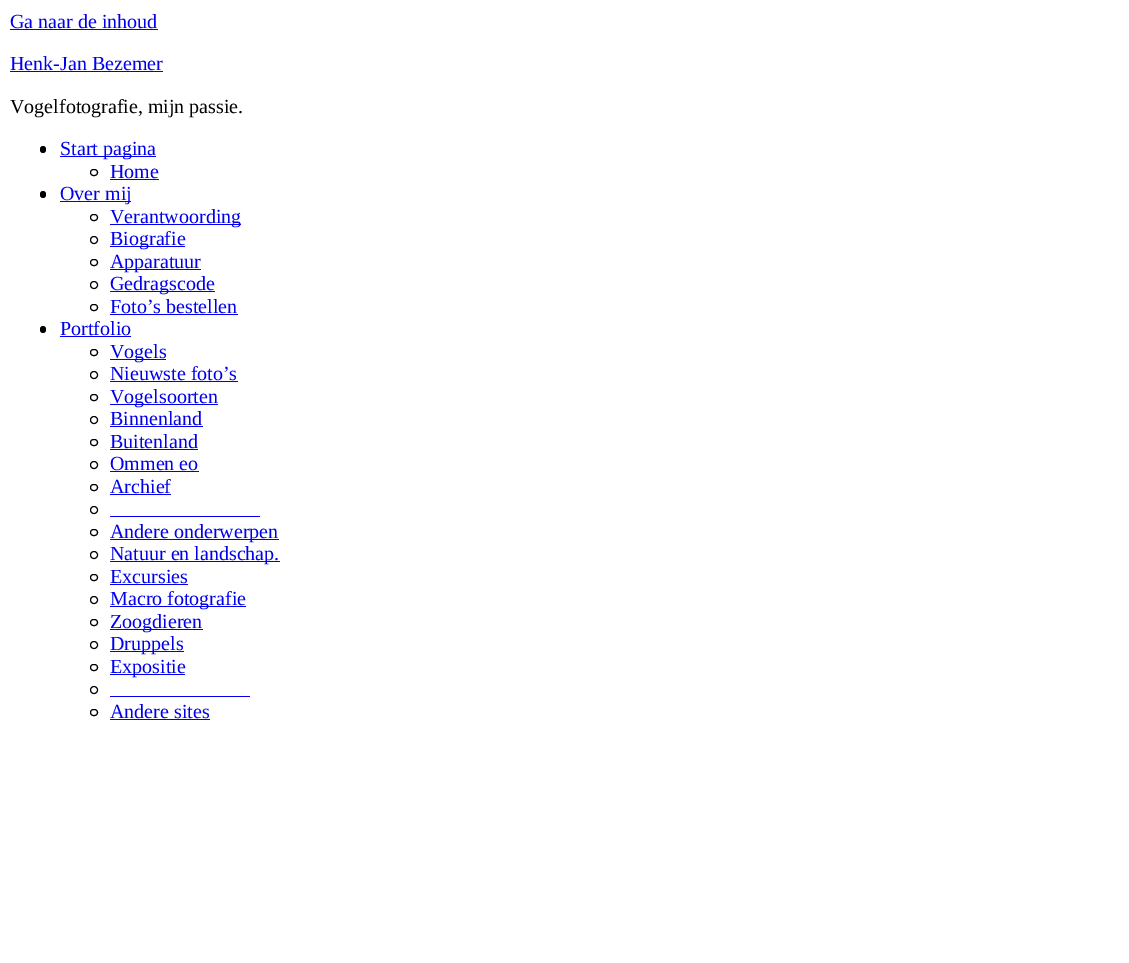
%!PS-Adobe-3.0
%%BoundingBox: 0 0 1129 963
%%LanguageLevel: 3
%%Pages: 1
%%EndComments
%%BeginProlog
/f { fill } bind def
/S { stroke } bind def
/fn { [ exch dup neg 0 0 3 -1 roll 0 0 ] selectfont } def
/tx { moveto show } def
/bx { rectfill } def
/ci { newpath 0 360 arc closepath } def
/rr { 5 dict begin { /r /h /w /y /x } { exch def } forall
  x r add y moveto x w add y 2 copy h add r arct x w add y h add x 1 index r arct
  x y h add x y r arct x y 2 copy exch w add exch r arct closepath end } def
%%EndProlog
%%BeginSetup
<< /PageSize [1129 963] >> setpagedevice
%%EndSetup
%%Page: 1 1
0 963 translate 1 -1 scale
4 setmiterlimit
1 setgray
0 0 1129 963 bx
/LiberationSerif-Regular 20 fn
0 0 0.933 setrgbcolor
(Ga naar de inhoud) 10 28 tx
10 29 148 1 bx
(Henk-Jan Bezemer) 10 70 tx
10 71 153 1 bx
0 setgray
(Vogelfotografie, mijn passie.) 10 113 tx
40 146 6 7 3 rr f
0 0 0.933 setrgbcolor
60 156 96 1 bx
(Start pagina) 60 155 tx
0 setgray
90.5 169.5 7 6 3 rr S
0 0 0.933 setrgbcolor
(Home) 110 178 tx
110 179 49 1 bx
0 setgray
40 191 6 7 3 rr f
0 0 0.933 setrgbcolor
60 201 71 1 bx
(Over mij) 60 200 tx
0 setgray
90.5 214.5 7 6 3 rr S
0 0 0.933 setrgbcolor
110 224 131 1 bx
(Verantwoording) 110 223 tx
0 setgray
94 240 3.5 ci S
0 0 0.933 setrgbcolor
110 246 75 1 bx
(Biografie) 110 245 tx
0 setgray
90.5 259.5 7 6 3 rr S
0 0 0.933 setrgbcolor
110 269 91 1 bx
(Apparatuur) 110 268 tx
0 setgray
94 285 3.5 ci S
0 0 0.933 setrgbcolor
110 291 105 1 bx
(Gedragscode) 110 290 tx
0 setgray
90.5 304.5 7 6 3 rr S
0 0 0.933 setrgbcolor
(Foto’s bestellen) 110 313 tx
110 314 128 1 bx
0 setgray
40 326 6 7 3 rr f
0 0 0.933 setrgbcolor
(Portfolio) 60 335 tx
60 336 71 1 bx
0 setgray
90.5 349.5 7 6 3 rr S
0 0 0.933 setrgbcolor
110 359 56 1 bx
(Vogels) 110 358 tx
0 setgray
94 375 3.5 ci S
0 0 0.933 setrgbcolor
(Nieuwste foto’s) 110 380 tx
110 381 128 1 bx
0 setgray
90.5 394.5 7 6 3 rr S
0 0 0.933 setrgbcolor
110 404 108 1 bx
(Vogelsoorten) 110 403 tx
0 setgray
94 420 3.5 ci S
0 0 0.933 setrgbcolor
(Binnenland) 110 425 tx
110 426 93 1 bx
0 setgray
90.5 439.5 7 6 3 rr S
0 0 0.933 setrgbcolor
(Buitenland) 110 448 tx
110 449 88 1 bx
0 setgray
94 465 3.5 ci S
0 0 0.933 setrgbcolor
(Ommen eo) 110 470 tx
110 471 89 1 bx
0 setgray
90.5 484.5 7 6 3 rr S
0 0 0.933 setrgbcolor
(Archief) 110 493 tx
110 494 61 1 bx
0 setgray
94 510 3.5 ci S
0 0 0.933 setrgbcolor
110 516 150 1 bx
0 setgray
90.5 529.5 7 6 3 rr S
0 0 0.933 setrgbcolor
110 539 169 1 bx
(Andere onderwerpen) 110 538 tx
0 setgray
94 555 3.5 ci S
0 0 0.933 setrgbcolor
110 561 170 1 bx
(Natuur en landschap.) 110 560 tx
0 setgray
90.5 574.5 7 6 3 rr S
0 0 0.933 setrgbcolor
(Excursies) 110 583 tx
110 584 78 1 bx
0 setgray
94 600 3.5 ci S
0 0 0.933 setrgbcolor
110 606 136 1 bx
(Macro fotografie) 110 605 tx
0 setgray
90.5 619.5 7 6 3 rr S
0 0 0.933 setrgbcolor
110 629 93 1 bx
(Zoogdieren) 110 628 tx
0 setgray
94 645 3.5 ci S
0 0 0.933 setrgbcolor
110 651 74 1 bx
(Druppels) 110 650 tx
0 setgray
90.5 664.5 7 6 3 rr S
0 0 0.933 setrgbcolor
110 674 75 1 bx
(Expositie) 110 673 tx
0 setgray
94 690 3.5 ci S
0 0 0.933 setrgbcolor
110 696 140 1 bx
0 setgray
90.5 709.5 7 6 3 rr S
0 0 0.933 setrgbcolor
(Andere sites) 110 718 tx
110 719 100 1 bx
showpage
%%EOF
